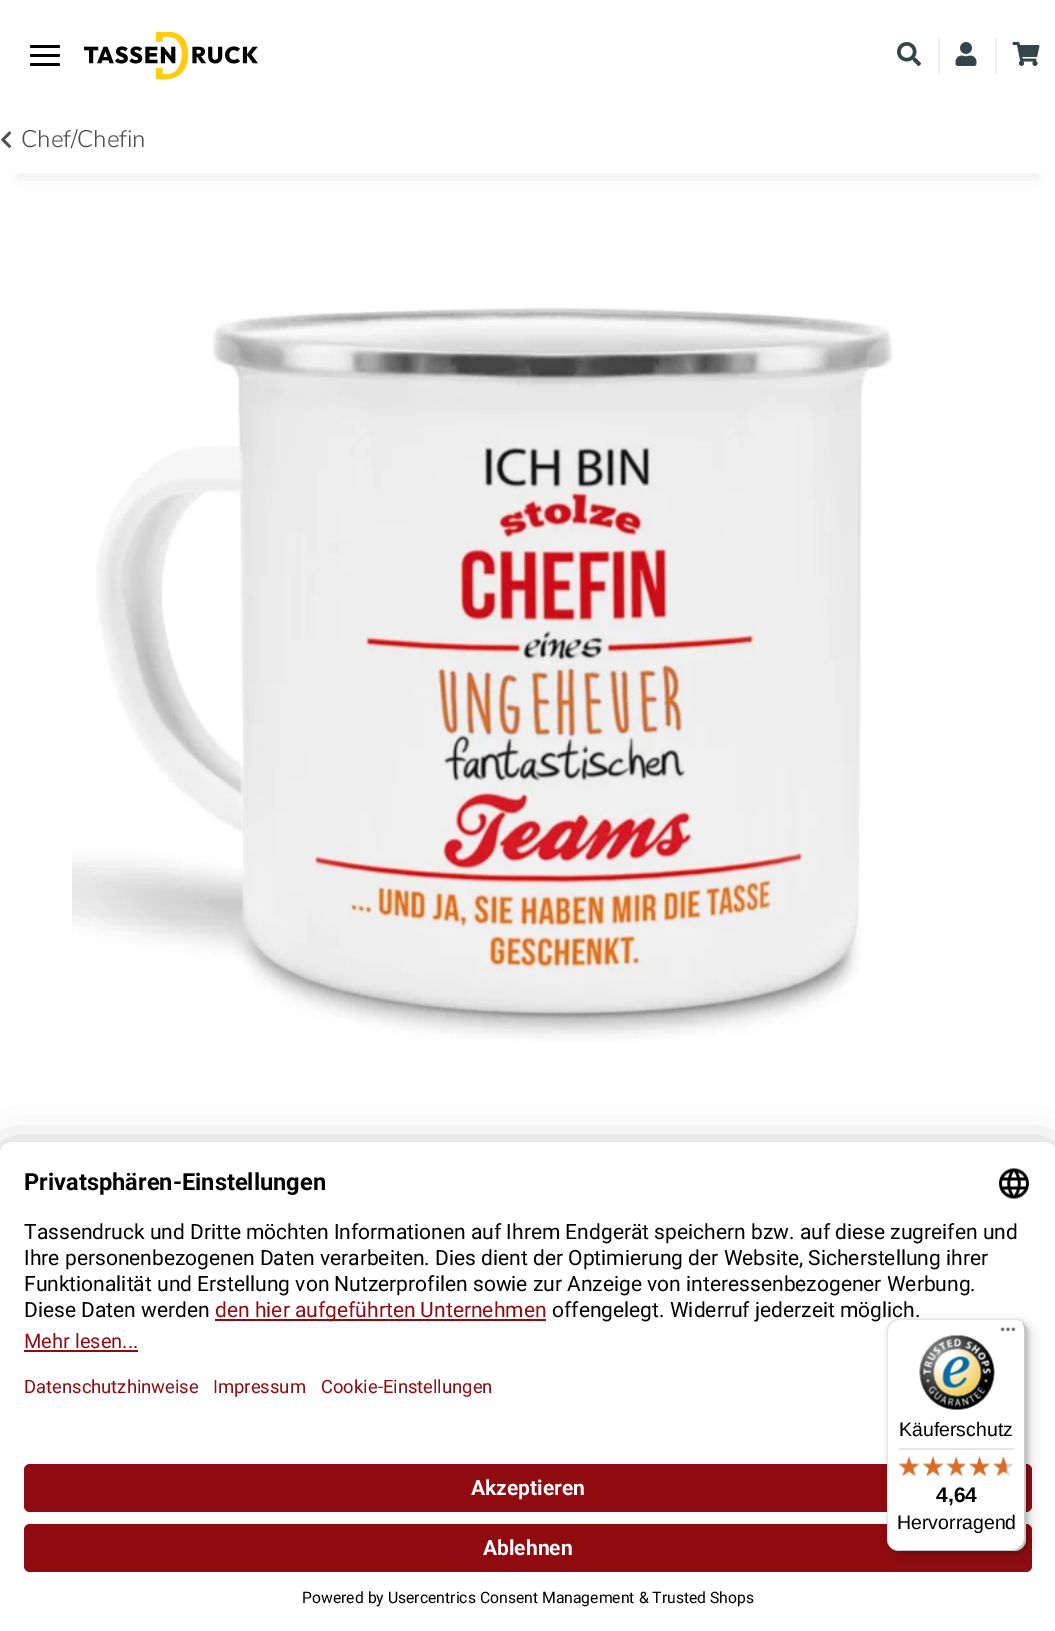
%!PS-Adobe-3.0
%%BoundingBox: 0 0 1055 1631
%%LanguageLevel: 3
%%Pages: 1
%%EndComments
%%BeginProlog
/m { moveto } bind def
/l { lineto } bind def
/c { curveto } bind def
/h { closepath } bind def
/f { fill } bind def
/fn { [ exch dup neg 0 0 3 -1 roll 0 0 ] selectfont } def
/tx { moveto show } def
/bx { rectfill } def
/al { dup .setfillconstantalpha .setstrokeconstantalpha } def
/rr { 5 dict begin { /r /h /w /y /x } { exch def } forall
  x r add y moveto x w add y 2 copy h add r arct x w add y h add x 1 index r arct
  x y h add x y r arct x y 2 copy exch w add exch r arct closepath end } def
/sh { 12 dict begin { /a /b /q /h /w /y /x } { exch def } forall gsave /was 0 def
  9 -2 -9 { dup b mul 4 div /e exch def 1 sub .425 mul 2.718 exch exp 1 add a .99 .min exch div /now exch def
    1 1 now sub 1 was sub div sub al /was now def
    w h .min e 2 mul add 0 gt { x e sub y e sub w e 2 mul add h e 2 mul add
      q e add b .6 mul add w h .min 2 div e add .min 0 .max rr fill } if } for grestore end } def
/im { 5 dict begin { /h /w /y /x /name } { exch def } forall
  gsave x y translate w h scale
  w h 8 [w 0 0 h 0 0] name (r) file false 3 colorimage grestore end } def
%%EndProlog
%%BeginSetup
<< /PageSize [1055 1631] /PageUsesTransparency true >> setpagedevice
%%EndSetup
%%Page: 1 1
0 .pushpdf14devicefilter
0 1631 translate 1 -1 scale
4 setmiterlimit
1 setgray
0 0 1055 1631 bx
0 setgray
18 42 1020 137 0 7 0.06 sh
1 setgray
11 35 1034 138 bx
0 setgray
30 54 30 3 1.5 rr f
30 45 30 3 1.5 rr f
30 63 30 3 1.5 rr f
(image0.raw) 84 32 174 48 im
0.933 setgray
938 38 2 36 bx
(image1.raw) 897 42 24 24 im
995 38 2 36 bx
(image2.raw) 955 42 22 24 im
(image3.raw) 1012 42 28 24 im
(image4.raw) 1 131 11 17 im
/NunitoSans-Light 24 fn
0.314 setgray
(Chef/Chefin) 21 147 tx
(image5.raw) 72 307 822 734 im
0 setgray
0 1172 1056 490 12 21 0.3 sh
0 1149 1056 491 12 19.5 0.22 sh
1 setgray
12 1142 m 1044 1142 l 1050.5 1142 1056 1147.5 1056 1154 c 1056 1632 l 0 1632 l 0 1154 l 0 1147.5 5.5 1142 12 1142 c h f
12 1142 m 1044 1142 l 1050.5 1142 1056 1147.5 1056 1154 c 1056 1446 l 0 1446 l 0 1154 l 0 1147.5 5.5 1142 12 1142 c h f
/Roboto-Bold 23.6 fn
0 setgray
(Privatsphären-Einstellungen) 24 1190 tx
(image6.raw) 999 1168 30 31 im
/Roboto-Regular 21 fn
(Tassendruck und Dritte möchten Informationen auf Ihrem Endgerät speichern bzw. auf diese zugreifen und) 24 1239 tx
(Ihre personenbezogenen Daten verarbeiten. Dies dient der Optimierung der Website, Sicherstellung ihrer) 24 1265 tx
(Funktionalität und Erstellung von Nutzerprofilen sowie zur Anzeige von interessenbezogener Werbung.) 24 1291 tx
(Diese Daten werden) 24 1317 tx
0.565 0.043 0.063 setrgbcolor
215 1319 331 2 bx
(den hier aufgeführten Unternehmen) 215 1317 tx
0 setgray
(offengelegt. Widerruf jederzeit möglich.) 552 1317 tx
/Roboto-Regular 20 fn
0.565 0.043 0.063 setrgbcolor
(Mehr lesen...) 24 1348 tx
24 1350 114 2 bx
/Roboto-Regular 18.4 fn
(Datenschutzhinweise) 24 1393 tx
(Impressum) 213 1393 tx
(Cookie-Einstellungen) 321 1393 tx
24 1464 1008 48 6 rr f
/Roboto-Bold 21 fn
1 setgray
(Akzeptieren) 471 1495 tx
0.565 0.043 0.063 setrgbcolor
24 1524 1008 48 6 rr f
1 setgray
(Ablehnen) 483 1555 tx
/Roboto-Regular 15.75 fn
0 setgray
(Powered by Usercentrics Consent Management & Trusted Shops) 302 1603 tx
891 1323 140 233 12 6 0.15 sh
888 1320 140 233 12 1.5 0.15 sh
1 setgray
887 1319 139 232 12 rr f
0.1 al
0 setgray
900 1320 m 1016 1320 l 1021 1321 l 1019 1320 1016 1319 1014 1319 c 899 1319 l 892 1319 887 1324 887 1331 c 887 1539 l 887 1542 888 1545 890 1547 c 889 1545 888 1543 888 1540 c 888 1332 l 888 1325 893 1320 900 1320 c h f
0.2 al
893 1549 m 894 1550 897 1551 899 1551 c 1014 1551 l 1021 1551 1026 1546 1026 1539 c 1026 1331 l 1026 1327 1024 1324 1022 1322 c 1023 1324 1024 1326 1024 1329 c 1024 1538 l 1024 1544 1019 1550 1012 1550 c 897 1550 l h f
0.196 setgray
891 1548 m 893 1550 896 1551 899 1551 c 1014 1551 l 1021 1551 1026 1546 1026 1539 c 1026 1331 l 1026 1328 1025 1325 1023 1323 c 1024 1325 1025 1327 1025 1330 c 1025 1538 l 1025 1545 1020 1550 1013 1550 c 898 1550 l 895 1550 893 1549 891 1548 c h f
0.3 al
1 setgray
891 1548 m 893 1550 896 1551 899 1551 c 1014 1551 l 1021 1551 1026 1546 1026 1539 c 1026 1331 l 1026 1328 1025 1325 1023 1323 c 1024 1325 1025 1327 1025 1330 c 1025 1538 l 1025 1545 1020 1550 1013 1550 c 898 1550 l 895 1550 893 1549 891 1548 c h f
1 al
(image7.raw) 1000 1327 16 5 im
(image8.raw) 919 1335 76 75 im
/LiberationSans-Regular 19.5 fn
0 setgray
(Käuferschutz) 899 1436 tx
0.898 setgray
899 1448 115 2 bx
(image14.raw) 899 1457 20 19 im
(image9.raw) 898 1456 22 20 im
(image15.raw) 923 1456 20 20 im
(image10.raw) 923 1456 20 20 im
(image16.raw) 946 1456 20 20 im
(image11.raw) 946 1456 20 20 im
(image17.raw) 969 1456 21 20 im
(image12.raw) 969 1456 21 20 im
(image18.raw) 993 1457 21 19 im
(image13.raw) 993 1456 14 20 im
/LiberationSans-Bold 21 fn
0 setgray
(4,64) 936 1502 tx
/LiberationSans-Regular 19.5 fn
(Hervorragend) 897 1529 tx
.poppdf14devicefilter showpage
%%EOF
